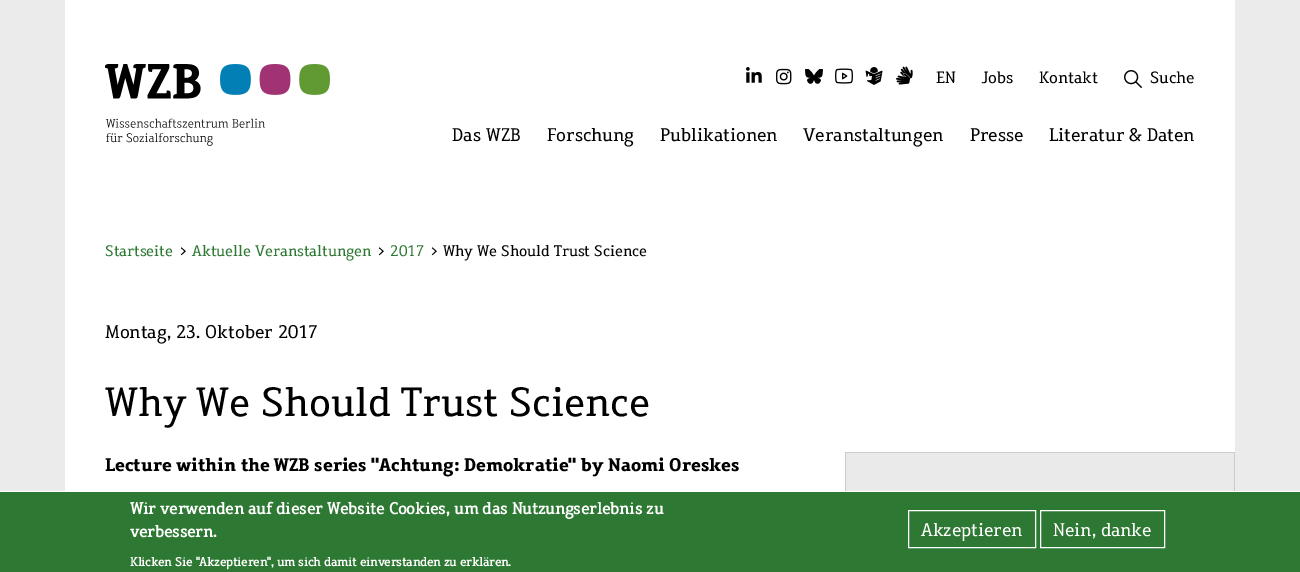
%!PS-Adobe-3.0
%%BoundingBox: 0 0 1300 572
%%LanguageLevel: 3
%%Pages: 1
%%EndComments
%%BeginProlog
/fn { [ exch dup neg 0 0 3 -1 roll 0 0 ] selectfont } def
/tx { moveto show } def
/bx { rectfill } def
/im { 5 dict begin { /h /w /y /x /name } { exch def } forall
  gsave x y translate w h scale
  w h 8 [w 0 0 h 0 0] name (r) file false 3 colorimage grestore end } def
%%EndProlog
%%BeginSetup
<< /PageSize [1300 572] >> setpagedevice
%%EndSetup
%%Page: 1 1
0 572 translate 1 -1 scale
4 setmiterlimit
0.922 setgray
0 0 1300 572 bx
1 setgray
65 0 1170 491 bx
(image0.raw) 105 64 160 82 im
(image1.raw) 220 64 110 31 im
(image2.raw) 746 67 16 16 im
(image3.raw) 776 68 16 17 im
(image4.raw) 805 69 18 15 im
(image5.raw) 835 68 18 16 im
(image6.raw) 865 67 18 18 im
(image7.raw) 896 66 17 19 im
/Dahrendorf-Regular 16 fn
0 setgray
(EN) 936 83 tx
(Jobs) 982 83 tx
(Kontakt) 1039 83 tx
(image8.raw) 1124 70 18 18 im
(Suche) 1150 83 tx
/Dahrendorf-Regular 18 fn
(Das WZB) 452 141 tx
(Forschung) 547 141 tx
(Publikationen) 660 141 tx
(Veranstaltungen) 803 141 tx
(Presse) 970 141 tx
(Literatur & Daten) 1049 141 tx
/Dahrendorf-Regular 15 fn
0.176 0.471 0.196 setrgbcolor
(Startseite) 105 256 tx
0 setgray
(>) 179 256 tx
0.176 0.471 0.196 setrgbcolor
(Aktuelle Veranstaltungen) 192 256 tx
0 setgray
(>) 377 256 tx
0.176 0.471 0.196 setrgbcolor
(2017) 390 256 tx
0 setgray
(> Why We Should Trust Science) 430 256 tx
/Dahrendorf-Regular 18 fn
(Montag, 23. Oktober 2017) 105 338 tx
/Dahrendorf-Regular 40 fn
(Why We Should Trust Science) 105 416 tx
/Dahrendorf-Bold 18 fn
(Lecture within the WZB series "Achtung: Demokratie" by Naomi Oreskes) 105 471 tx
0.8 setgray
845 452 1 39 bx
846 452 389 1 bx
0.918 setgray
846 453 388 38 bx
0.8 setgray
1234 453 1 38 bx
0.176 0.471 0.196 setrgbcolor
0 492 1300 80 bx
1 setgray
0 491 1300 1 bx
/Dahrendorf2-Bold 16 fn
(Wir verwenden auf dieser Website Cookies, um das Nutzungserlebnis zu) 130 514 tx
(verbessern.) 130 537 tx
/Dahrendorf2-Bold 12 fn
(Klicken Sie "Akzeptieren", um sich damit einverstanden zu erklären.) 130 566 tx
908.5 510.5 127 37 rectstroke
/Dahrendorf-Regular 18 fn
(Akzeptieren) 921 536 tx
1040.5 510.5 124 37 rectstroke
(Nein, danke) 1053 536 tx
showpage
%%EOF
